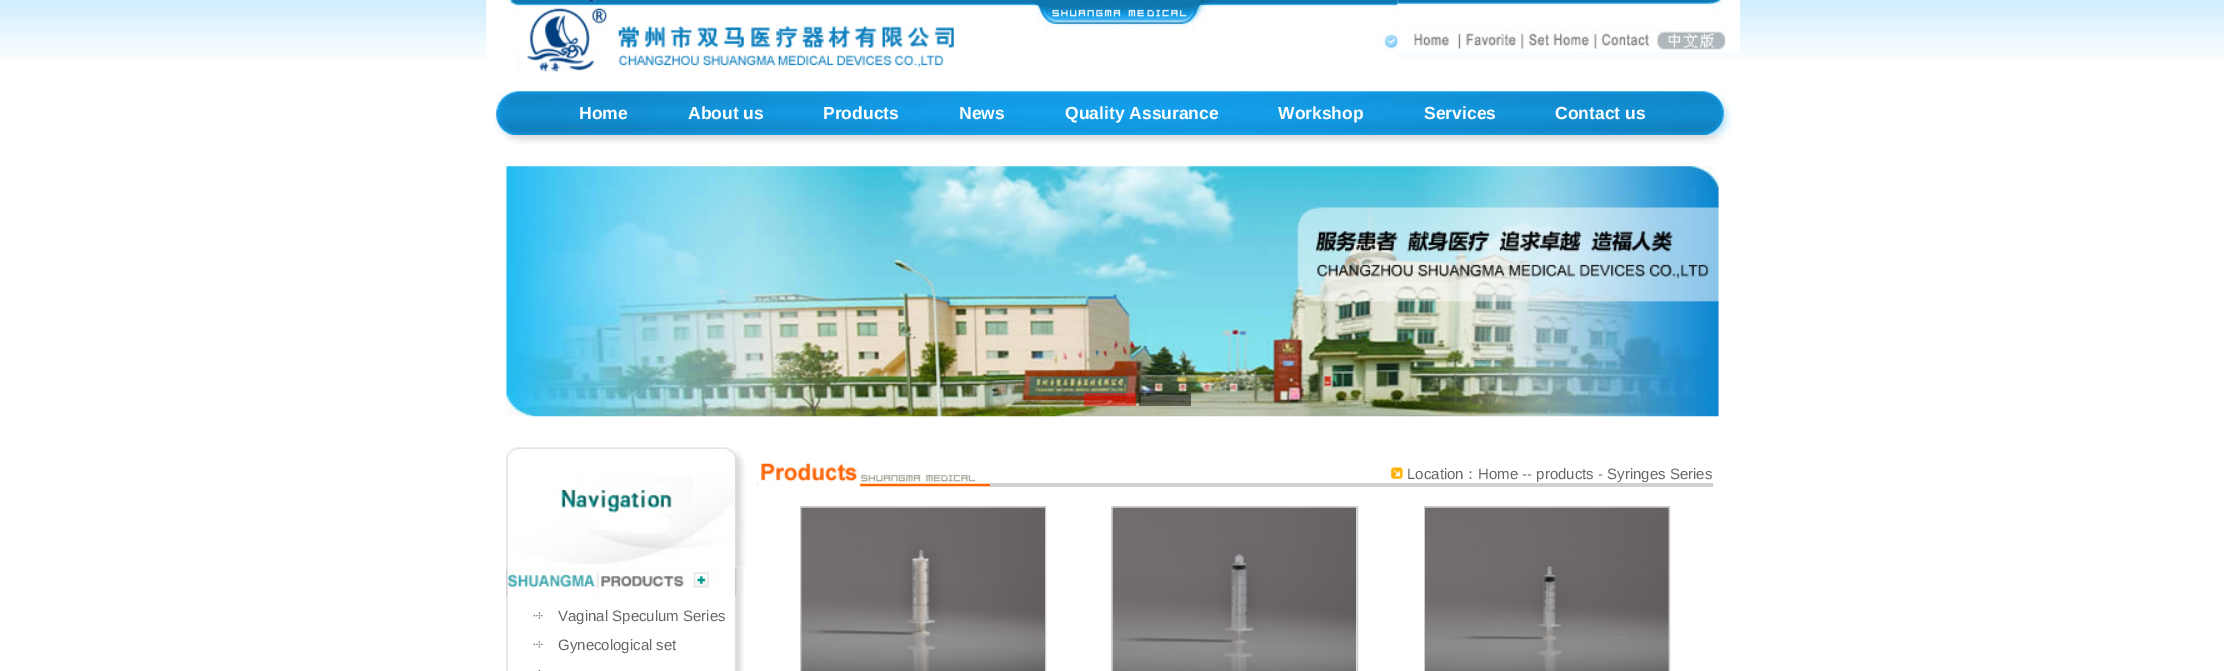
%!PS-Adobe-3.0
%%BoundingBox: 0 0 2224 671
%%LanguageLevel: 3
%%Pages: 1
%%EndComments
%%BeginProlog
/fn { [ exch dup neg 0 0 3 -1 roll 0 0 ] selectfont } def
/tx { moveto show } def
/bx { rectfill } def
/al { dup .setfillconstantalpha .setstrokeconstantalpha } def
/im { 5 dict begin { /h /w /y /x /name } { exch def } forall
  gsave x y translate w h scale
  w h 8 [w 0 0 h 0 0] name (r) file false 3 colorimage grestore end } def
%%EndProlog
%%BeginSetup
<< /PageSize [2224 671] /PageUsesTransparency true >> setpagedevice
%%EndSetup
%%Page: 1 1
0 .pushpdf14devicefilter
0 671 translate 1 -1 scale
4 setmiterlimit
1 setgray
0 0 2224 671 bx
(image0.raw) 0 0 2224 60 im
(image1.raw) 486 0 912 72 im
(image2.raw) 1397 0 343 29 im
(image3.raw) 1397 29 66 24 im
(image4.raw) 1462 29 66 24 im
(image5.raw) 1527 29 66 24 im
(image6.raw) 1592 29 65 24 im
(image7.raw) 1656 29 84 24 im
(image8.raw) 494 90 1239 45 im
/LiberationSans-Bold 17.5 fn
(Home) 579 119 tx
(About us) 688 119 tx
(Products) 823 119 tx
(News) 959 119 tx
(Quality Assurance) 1065 119 tx
(Workshop) 1278 119 tx
(Services) 1424 119 tx
(Contact us) 1555 119 tx
(image9.raw) 502 135 1222 9 im
(image10.raw) 506 166 1213 251 im
0.5 al
1 0 0 setrgbcolor
1084 393 52 13 bx
0 setgray
1139 393 52 13 bx
1 al
0.816 setgray
757 483 956 4 bx
(image11.raw) 757 458 233 29 im
(image12.raw) 1391 467 12 12 im
/LiberationSans-Regular 15 fn
0.4 setgray
(Location) 1407 479 tx
/WenQuanYiZenHei-Medium 15 fn
(：) 1463 479 tx
/LiberationSans-Regular 15 fn
(Home -- products - Syringes Series) 1478 479 tx
0.804 setgray
800.5 506.5 245 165 rectstroke
(image13.raw) 801 507 244 164 im
1111.5 506.5 246 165 rectstroke
(image14.raw) 1112 507 245 164 im
1424.5 506.5 245 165 rectstroke
(image15.raw) 1425 507 244 164 im
(image16.raw) 506 447 239 121 im
(image18.raw) 506 596 238 75 im
(image17.raw) 506 567 238 30 im
(image19.raw) 533 612 10 7 im
0.4 setgray
(Vaginal Speculum Series) 558 621 tx
(image20.raw) 533 641 10 7 im
(Gynecological set) 558 650 tx
(image21.raw) 538 669 3 2 im
.poppdf14devicefilter showpage
%%EOF
